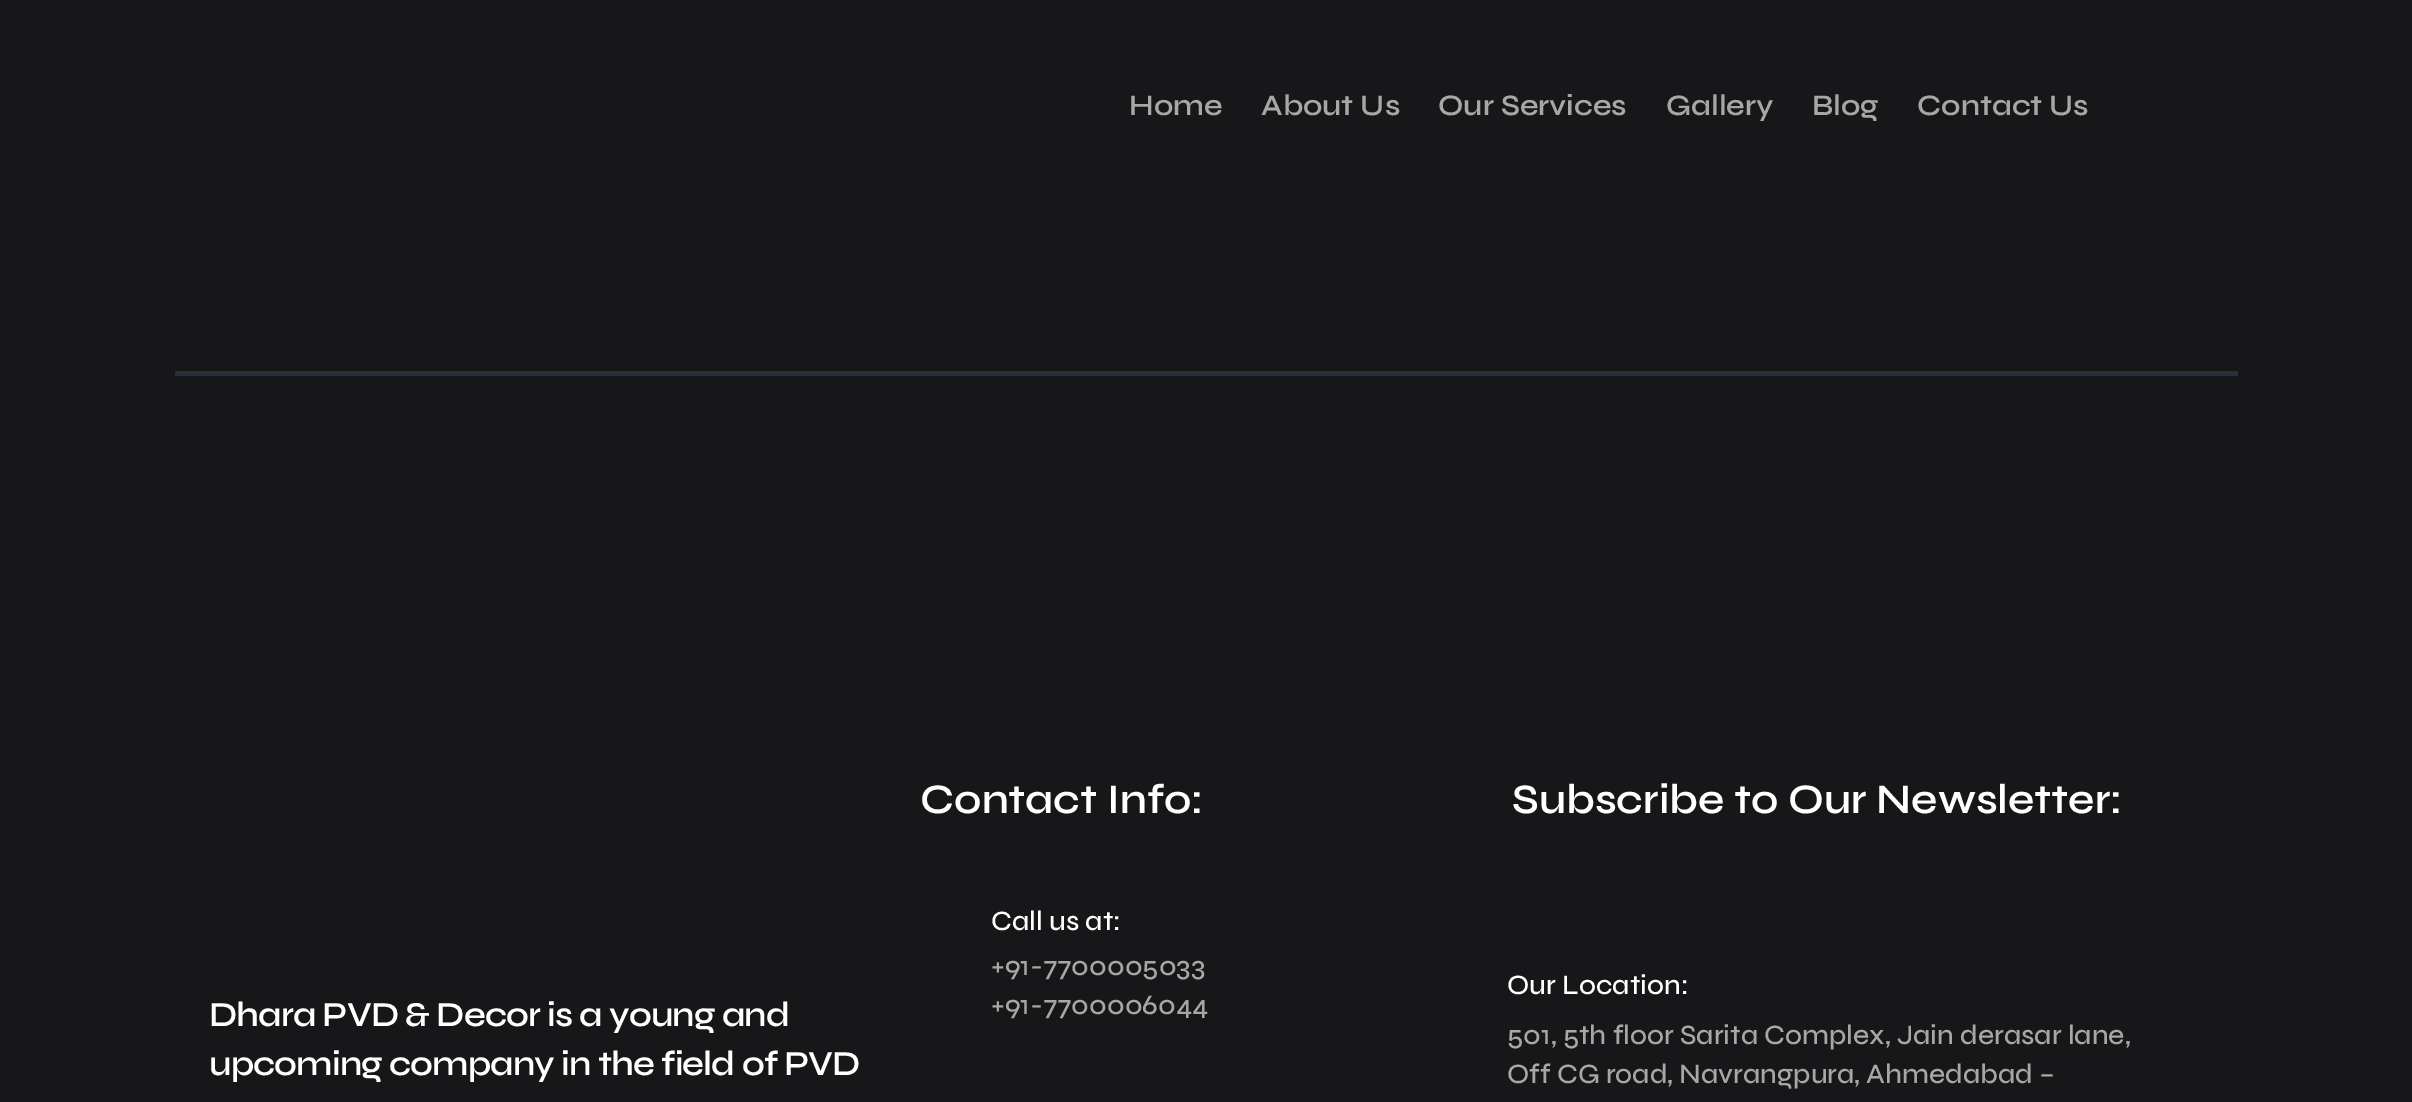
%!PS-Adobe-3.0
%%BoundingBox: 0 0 2412 1102
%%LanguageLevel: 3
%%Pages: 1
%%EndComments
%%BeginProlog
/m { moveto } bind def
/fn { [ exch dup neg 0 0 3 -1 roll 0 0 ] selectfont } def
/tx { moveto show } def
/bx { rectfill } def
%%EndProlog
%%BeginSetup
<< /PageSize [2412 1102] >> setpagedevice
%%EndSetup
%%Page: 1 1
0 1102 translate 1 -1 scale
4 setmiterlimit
0.09 0.09 0.098 setrgbcolor
0 0 2412 1102 bx
/Syne-SemiBold 29.75 fn
0.655 setgray
(Home) 1129 115 tx
(About Us) 1261 115 tx
(Our Services) 1438 115 tx
(Gallery) 1666 115 tx
(Blog) 1812 115 tx
(Contact Us) 1917 115 tx
0.157 0.188 0.239 setrgbcolor
175 371 2063 5 bx
/Syne-SemiBold 35 fn
1 setgray
209 1026 m -0.9 0 (Dhara PVD & Decor is a young and) ashow
209 1075 m -0.9 0 (upcoming company in the field of PVD) ashow
/Syne-SemiBold 42 fn
(Contact Info:) 920 813 tx
/Syne-Medium 28 fn
(Call us at:) 991 930 tx
0.655 setgray
(+91-7700005033) 991 975 tx
(+91-7700006044) 991 1014 tx
/Syne-SemiBold 42 fn
1 setgray
(Subscribe to Our Newsletter:) 1512 813 tx
/Syne-Medium 28 fn
(Our Location:) 1507 994 tx
0.655 setgray
(501, 5th floor Sarita Complex, Jain derasar lane,) 1507 1044 tx
(Off CG road, Navrangpura, Ahmedabad –) 1507 1083 tx
showpage
%%EOF
